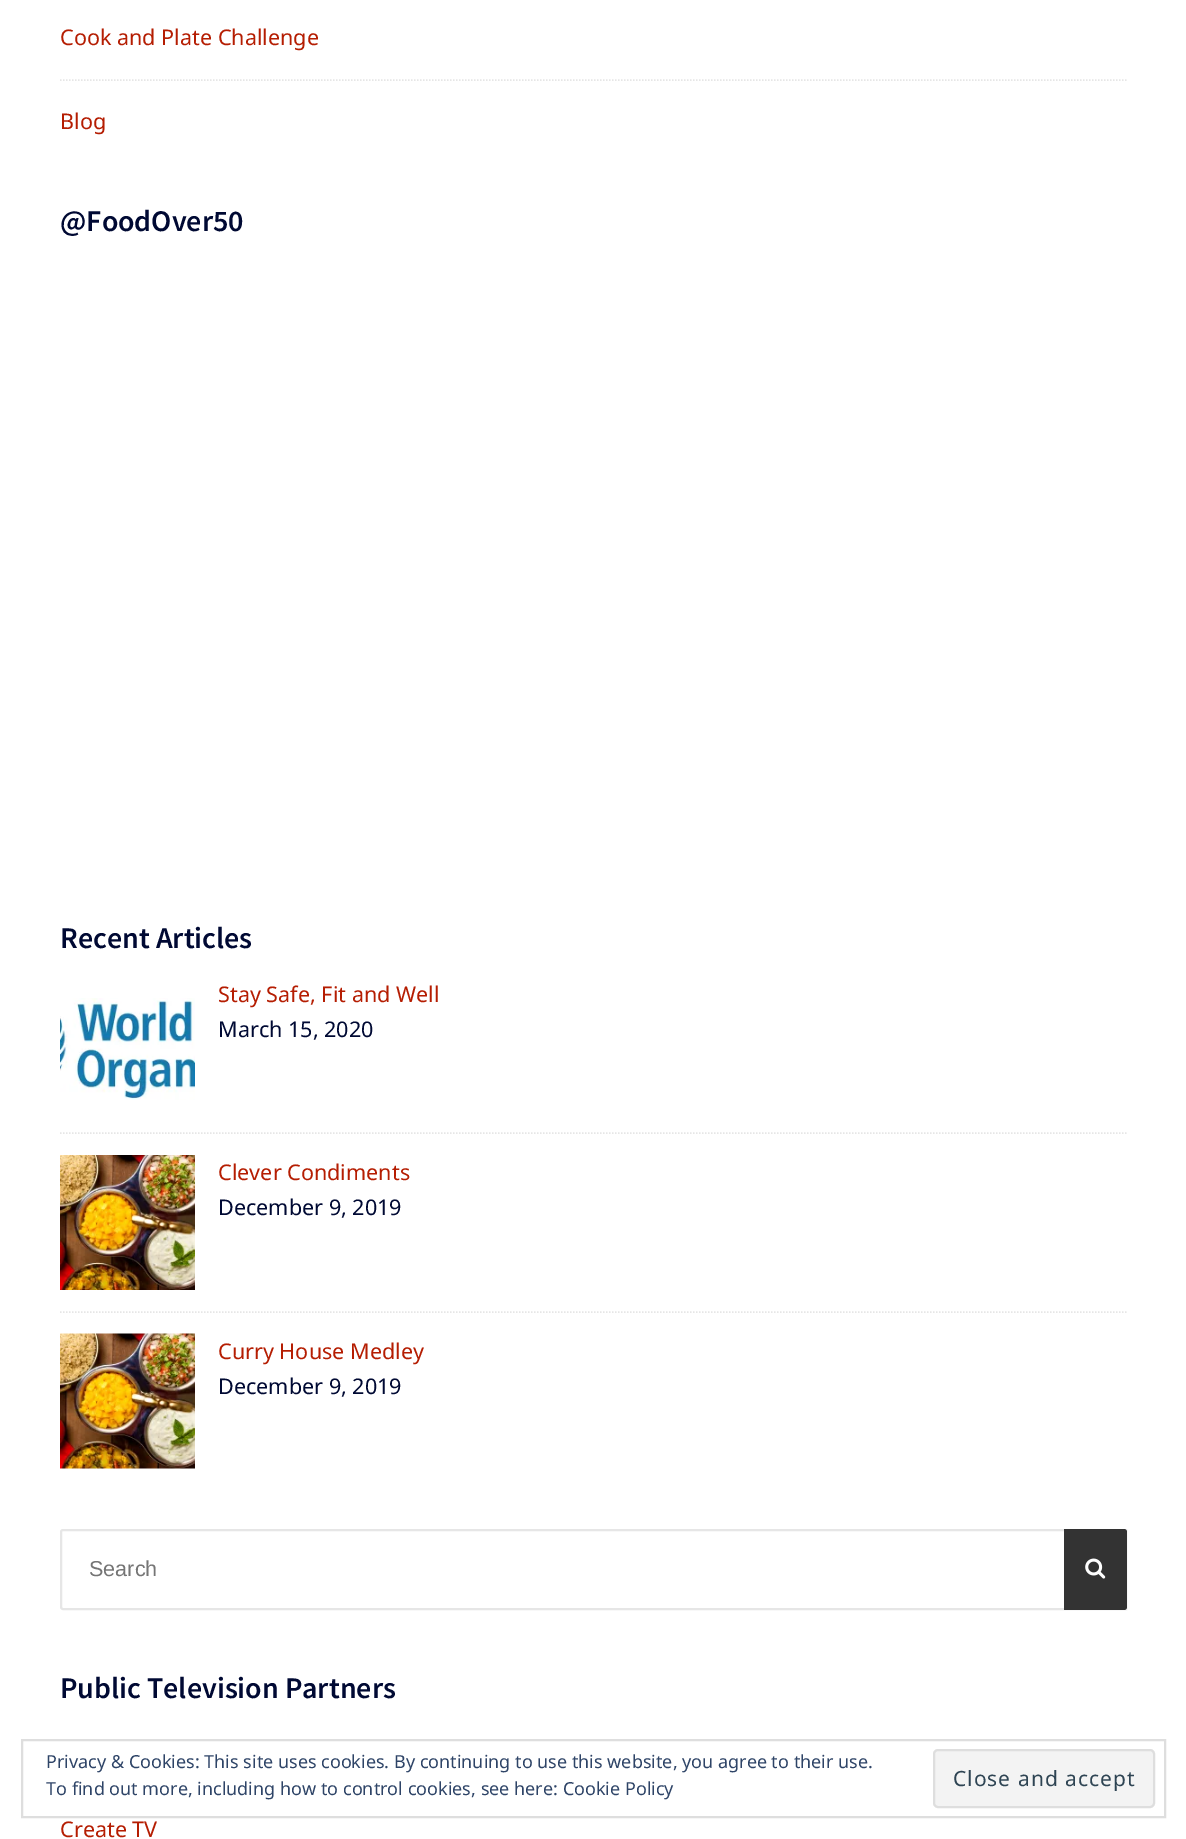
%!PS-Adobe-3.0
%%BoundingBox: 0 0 1186 1839
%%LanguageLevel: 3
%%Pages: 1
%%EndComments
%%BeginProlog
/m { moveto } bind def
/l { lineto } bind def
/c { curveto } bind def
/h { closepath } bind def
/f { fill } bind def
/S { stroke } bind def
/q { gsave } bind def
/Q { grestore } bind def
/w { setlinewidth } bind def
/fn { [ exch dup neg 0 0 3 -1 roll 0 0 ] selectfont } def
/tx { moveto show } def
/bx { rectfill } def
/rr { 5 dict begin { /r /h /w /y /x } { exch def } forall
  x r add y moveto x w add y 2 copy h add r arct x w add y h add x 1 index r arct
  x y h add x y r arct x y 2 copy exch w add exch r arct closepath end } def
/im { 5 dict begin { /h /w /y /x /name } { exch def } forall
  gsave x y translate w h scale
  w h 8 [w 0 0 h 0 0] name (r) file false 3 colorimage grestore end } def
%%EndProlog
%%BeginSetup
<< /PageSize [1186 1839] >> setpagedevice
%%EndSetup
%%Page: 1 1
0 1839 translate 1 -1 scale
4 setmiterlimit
1 setgray
0 0 1186 1839 bx
/NotoSans-Regular 21.6 fn
0.71 0.114 0.008 setrgbcolor
(Cook and Plate Challenge) 60 45 tx
0.902 setgray
1.5 w
[1.5 1.5] 0 setdash
60 80 m 1126.5 80 l S
0.71 0.114 0.008 setrgbcolor
(Blog) 60 129 tx
/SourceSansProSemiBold-SemiBold 30 fn
0 0.035 0.2 setrgbcolor
(@FoodOver50) 60 231 tx
(Recent Articles) 60 948 tx
(image0.raw) 60 998 135 102 im
/NotoSans-Regular 21.6 fn
0.71 0.114 0.008 setrgbcolor
(Stay Safe, Fit and Well) 218 1002 tx
0 0.035 0.2 setrgbcolor
(March 15, 2020) 218 1037 tx
0.902 setgray
60 1133 m 1126.5 1133 l S
(image1.raw) 60 1155 135 135 im
0.71 0.114 0.008 setrgbcolor
(Clever Condiments) 218 1180 tx
0 0.035 0.2 setrgbcolor
(December 9, 2019) 218 1215 tx
0.902 setgray
60 1312 m 1126.5 1312 l S
(image2.raw) 60 1333 135 136 im
0.71 0.114 0.008 setrgbcolor
(Curry House Medley) 218 1359 tx
0 0.035 0.2 setrgbcolor
(December 9, 2019) 218 1394 tx
0.902 setgray
2 w
[] 0 setdash
63 1530 m 1126 1530 l 1126 1609 l 63 1609 l 62 1609 61 1608 61 1607 c 61 1532 l 61 1531 62 1530 63 1530 c h S
/LiberationSans-Regular 21.6 fn
0.459 setgray
(Search) 89 1576 tx
0.2 setgray
1064 1529 m 1124 1529 l 1125.5 1529 1127 1530.5 1127 1532 c 1127 1607 l 1127 1608.5 1125.5 1610 1124 1610 c 1064 1610 l h f
(image3.raw) 1085 1558 21 21 im
/SourceSansProSemiBold-SemiBold 30 fn
0 0.035 0.2 setrgbcolor
(Public Television Partners) 60 1698 tx
/NotoSans-Regular 21.6 fn
0.71 0.114 0.008 setrgbcolor
(Create TV) 60 1837 tx
0.871 setgray
22 1740 1143 77 rectstroke
/NotoSans-Regular 18 fn
0.18 0.267 0.404 setrgbcolor
(Privacy & Cookies: This site uses cookies. By continuing to use this website, you agree to their use.) 46 1768 tx
(To find out more, including how to control cookies, see here: Cookie Policy) 46 1795 tx
0.953 setgray
934 1750 220 57 4 rr q f Q
0.871 setgray
S
/NotoSans-Regular 21 fn
0.18 0.267 0.325 setrgbcolor
953 1786 m 1 0 (Close and accept) ashow
showpage
%%EOF
